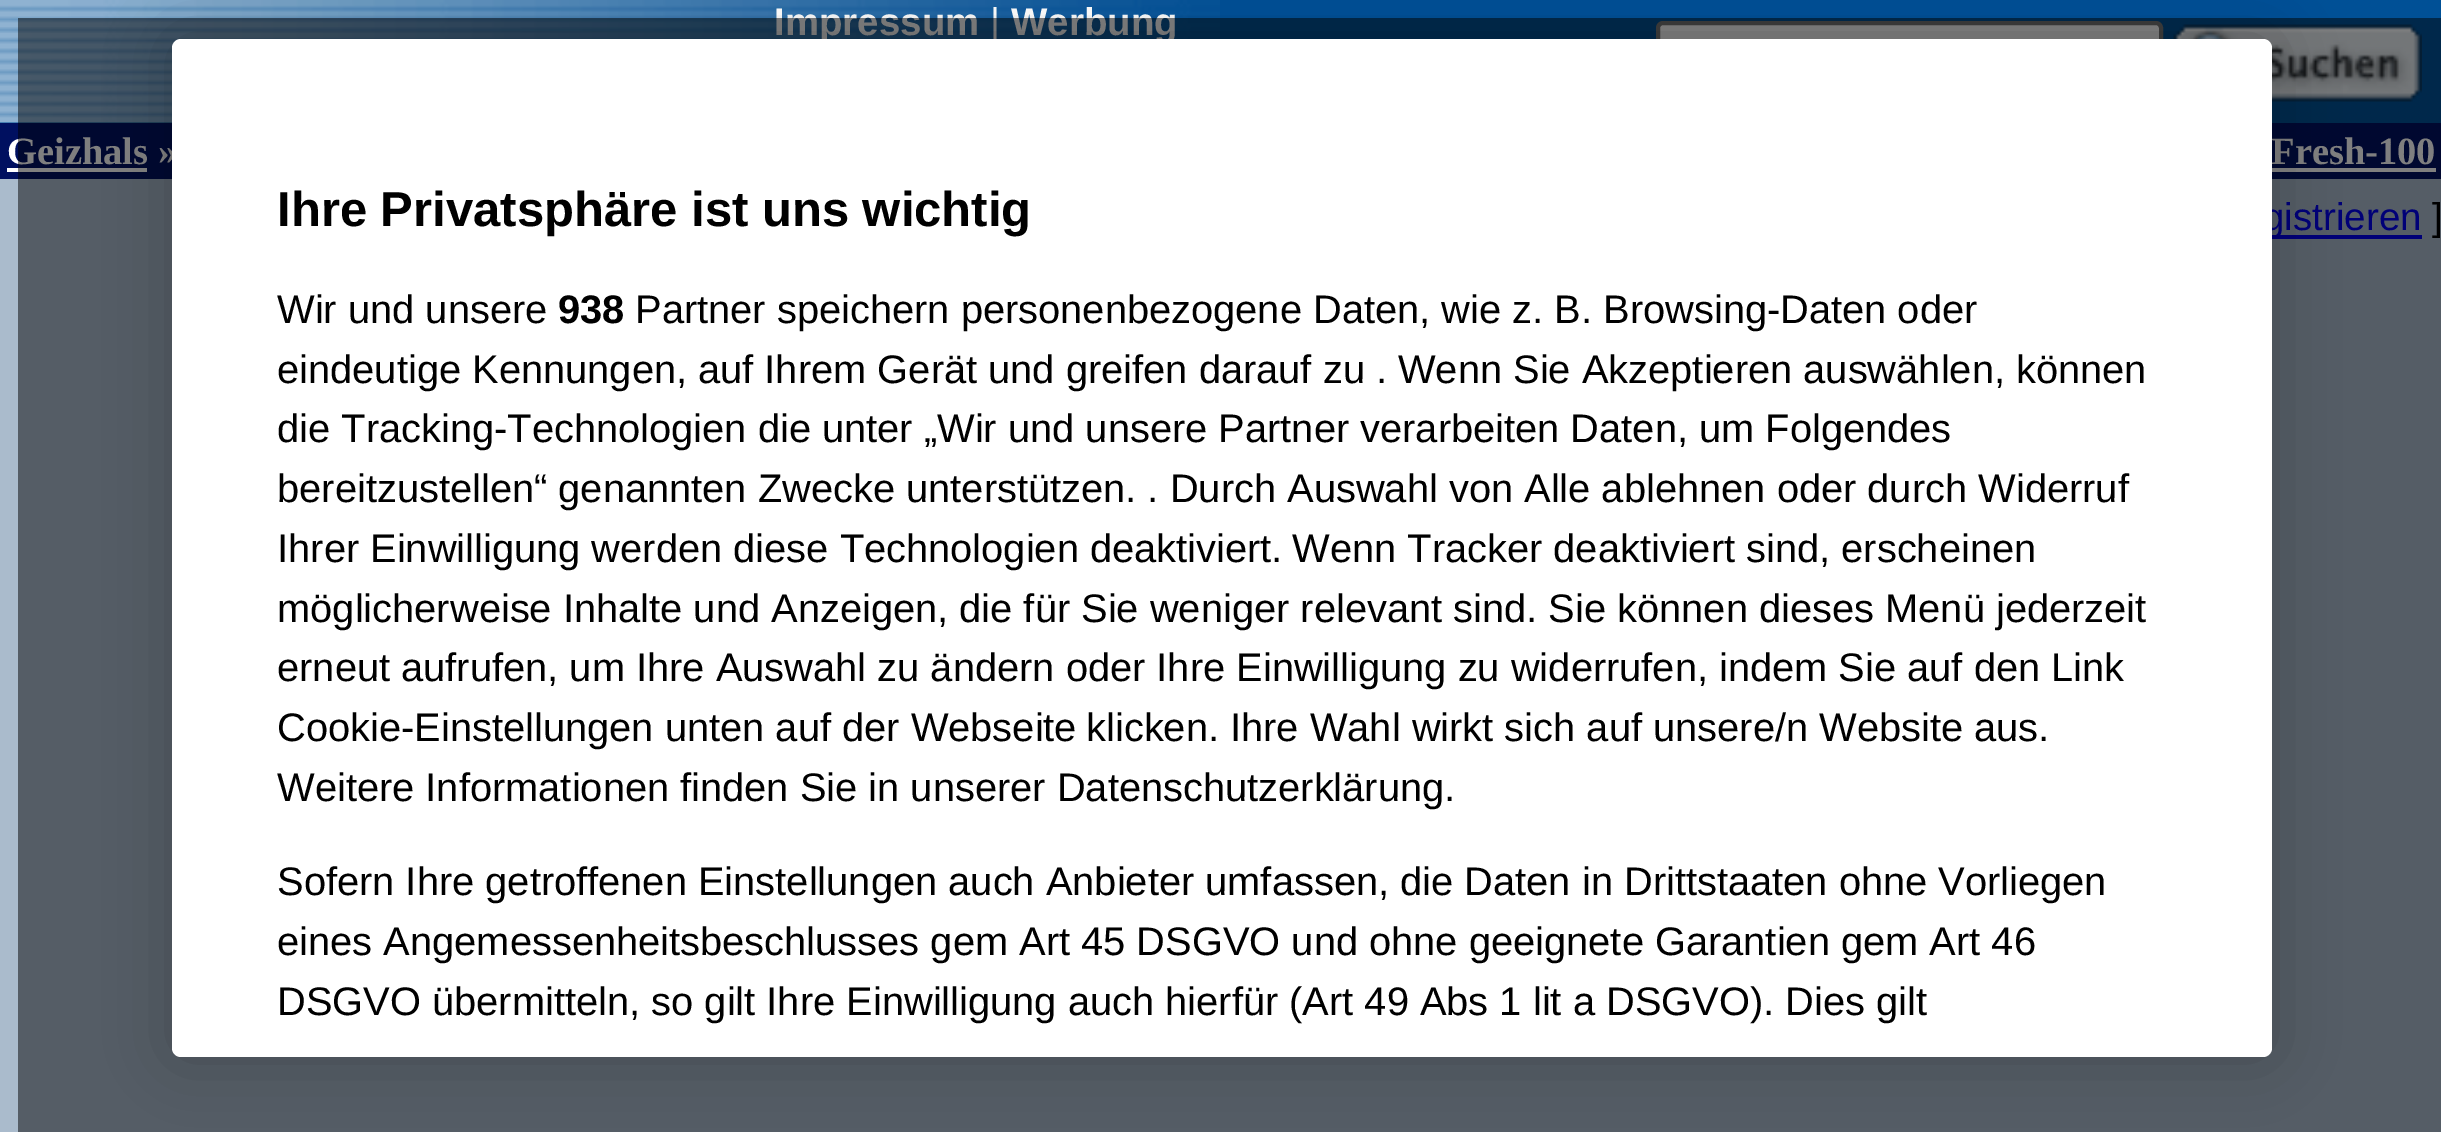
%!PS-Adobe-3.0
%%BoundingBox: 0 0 2441 1132
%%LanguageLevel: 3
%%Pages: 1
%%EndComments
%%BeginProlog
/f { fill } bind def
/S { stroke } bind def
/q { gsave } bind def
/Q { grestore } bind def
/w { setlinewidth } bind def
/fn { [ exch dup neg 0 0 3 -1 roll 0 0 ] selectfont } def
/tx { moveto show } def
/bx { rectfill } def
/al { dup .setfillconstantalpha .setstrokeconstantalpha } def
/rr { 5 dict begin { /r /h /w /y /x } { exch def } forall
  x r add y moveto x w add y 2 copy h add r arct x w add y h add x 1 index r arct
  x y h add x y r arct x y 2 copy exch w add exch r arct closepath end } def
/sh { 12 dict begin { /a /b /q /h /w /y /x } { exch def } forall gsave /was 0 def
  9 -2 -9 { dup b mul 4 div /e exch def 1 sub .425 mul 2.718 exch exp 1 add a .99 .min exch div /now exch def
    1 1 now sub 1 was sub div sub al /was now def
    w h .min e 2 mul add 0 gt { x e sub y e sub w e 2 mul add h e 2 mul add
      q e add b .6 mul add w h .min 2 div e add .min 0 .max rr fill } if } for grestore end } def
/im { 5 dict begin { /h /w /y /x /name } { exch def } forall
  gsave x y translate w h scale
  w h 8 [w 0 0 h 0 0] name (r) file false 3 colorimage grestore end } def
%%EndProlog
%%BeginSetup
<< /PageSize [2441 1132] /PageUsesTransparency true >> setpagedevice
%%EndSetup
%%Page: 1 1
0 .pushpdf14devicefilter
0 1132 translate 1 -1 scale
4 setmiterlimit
0.667 0.733 0.8 setrgbcolor
0 0 2441 1132 bx
0 0.314 0.588 setrgbcolor
0 0 2441 123 bx
(image0.raw) 0 0 1220 123 im
/LiberationSans-Bold 38.5 fn
1 setgray
(Impressum) 774 35 tx
/LiberationSans-Regular 38.5 fn
(|) 990 35 tx
/LiberationSans-Bold 38.5 fn
(Werbung) 1011 35 tx
1658 23 503 70 5 rr q f Q
0.463 setgray
4 w
S
(image1.raw) 2173 24 249 78 im
0 0.063 0.376 setrgbcolor
0 123 2441 56 bx
/LiberationSerif-Bold 38.5 fn
1 setgray
(Geizhals ») 7 164 tx
7 168 140 4 bx
(Fresh-100) 2271 164 tx
2272 168 164 4 bx
0 0 0.933 setrgbcolor
2272 235 150 4 bx
/LiberationSans-Regular 38.5 fn
(gistrieren) 2263 230 tx
0 setgray
(]) 2432 230 tx
0.5 al
18 18 2423 1114 bx
1 al
172 39 2100 1018 9 31.5 0.2 sh
1 setgray
172 39 2100 1018 9 rr f
/LiberationSans-Bold 49 fn
0 setgray
(Ihre Privatsphäre ist uns wichtig) 277 226 tx
/LiberationSans-Regular 39.85 fn
(Wir und unsere) 277 323 tx
/LiberationSans-Bold 39.85 fn
(938) 558 323 tx
/LiberationSans-Regular 39.85 fn
(Partner speichern personenbezogene Daten, wie z. B. Browsing-Daten oder) 635 323 tx
(eindeutige Kennungen, auf Ihrem Gerät und greifen darauf zu . Wenn Sie Akzeptieren auswählen, können) 277 383 tx
(die Tracking-Technologien die unter „Wir und unsere Partner verarbeiten Daten, um Folgendes) 277 442 tx
(bereitzustellen“ genannten Zwecke unterstützen. . Durch Auswahl von Alle ablehnen oder durch Widerruf) 277 502 tx
(Ihrer Einwilligung werden diese Technologien deaktiviert.) 277 562 tx
(Wenn Tracker deaktiviert sind, erscheinen) 1292 562 tx
(möglicherweise Inhalte und Anzeigen, die für Sie weniger relevant sind. Sie können dieses Menü jederzeit) 277 622 tx
(erneut aufrufen, um Ihre Auswahl zu ändern oder Ihre Einwilligung zu widerrufen, indem Sie auf den Link) 277 681 tx
(Cookie-Einstellungen unten auf der Webseite) 277 741 tx
(klicken. Ihre Wahl wirkt sich auf unsere/n Website aus.) 1086 741 tx
(Weitere Informationen finden Sie in unserer Datenschutzerklärung.) 277 801 tx
(Sofern Ihre getroffenen Einstellungen auch Anbieter umfassen, die Daten in Drittstaaten ohne Vorliegen) 277 895 tx
(eines Angemessenheitsbeschlusses gem Art 45 DSGVO und ohne geeignete Garantien gem Art 46) 277 955 tx
(DSGVO übermitteln, so gilt Ihre Einwilligung auch hierfür \(Art 49 Abs 1 lit a DSGVO\). Dies gilt) 277 1015 tx
.poppdf14devicefilter showpage
%%EOF
